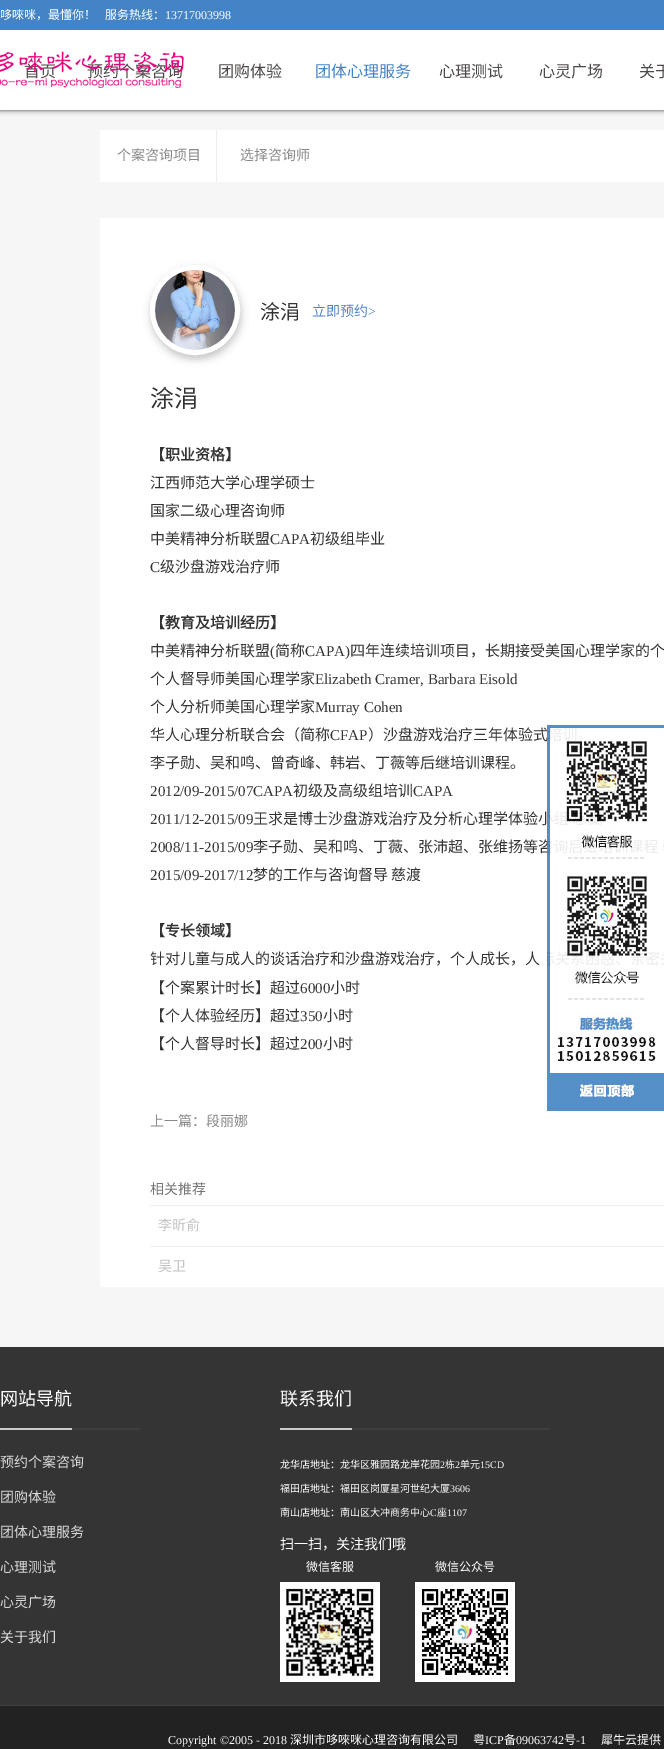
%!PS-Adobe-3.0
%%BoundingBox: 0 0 664 1749
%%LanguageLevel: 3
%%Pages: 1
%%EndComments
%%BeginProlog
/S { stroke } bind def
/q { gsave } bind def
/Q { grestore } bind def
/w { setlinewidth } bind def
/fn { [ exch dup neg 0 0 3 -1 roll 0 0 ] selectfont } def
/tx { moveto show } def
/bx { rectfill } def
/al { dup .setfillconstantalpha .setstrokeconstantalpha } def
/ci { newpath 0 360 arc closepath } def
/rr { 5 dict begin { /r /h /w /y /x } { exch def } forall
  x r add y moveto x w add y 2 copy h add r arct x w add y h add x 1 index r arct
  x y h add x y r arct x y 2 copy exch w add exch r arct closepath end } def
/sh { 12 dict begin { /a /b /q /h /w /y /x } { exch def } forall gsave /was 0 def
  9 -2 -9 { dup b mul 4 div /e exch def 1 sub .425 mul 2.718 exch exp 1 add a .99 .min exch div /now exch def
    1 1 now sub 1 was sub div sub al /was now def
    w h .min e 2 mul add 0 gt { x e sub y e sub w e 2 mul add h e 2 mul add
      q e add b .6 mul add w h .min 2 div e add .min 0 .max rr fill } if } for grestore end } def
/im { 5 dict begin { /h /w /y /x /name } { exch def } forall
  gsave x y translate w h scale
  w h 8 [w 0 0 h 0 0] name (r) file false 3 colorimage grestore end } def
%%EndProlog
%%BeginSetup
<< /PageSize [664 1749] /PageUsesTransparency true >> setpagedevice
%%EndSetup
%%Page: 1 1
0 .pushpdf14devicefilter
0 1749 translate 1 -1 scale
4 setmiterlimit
0.965 0.965 0.969 setrgbcolor
0 0 664 1749 bx
0 setgray
0 0 664 110 0 2.5 0.71 sh
1 setgray
0 30 664 80 bx
0.267 0.514 0.773 setrgbcolor
0 0 664 30 bx
/NotoSansCJKSC-Regular 12 fn
1 setgray
(哆唻咪，最懂你！) 0 19 tx
(服务热线：) 105 19 tx
/LiberationSerif-Regular 12 fn
(13717003998) 165 19 tx
/NotoSansCJKSC-Regular 16 fn
0.298 0.282 0.282 setrgbcolor
(首页) 24 77 tx
(预约个案咨询) 87 77 tx
(image0.raw) 0 51 184 37 im
(团购体验) 218 77 tx
0.263 0.514 0.769 setrgbcolor
(团体心理服务) 315 77 tx
0.298 0.282 0.282 setrgbcolor
(心理测试) 439 77 tx
(心灵广场) 539 77 tx
(关于) 639 77 tx
1 setgray
100 130 564 52 bx
/NotoSansCJKSC-Regular 14 fn
0.533 setgray
(个案咨询项目) 117 160 tx
0.929 setgray
216 130 1 52 bx
0.533 setgray
(选择咨询师) 240 160 tx
1 setgray
100 218 564 1069 bx
0 setgray
151 269 90 90 45 4 0.23 sh
1 setgray
5 w
195 310 42.5 ci S
(image1.raw) 155 270 80 80 im
/NotoSansCJKSC-Regular 20 fn
0.2 setgray
(涂涓) 260 319 tx
/NotoSansCJKSC-Regular 14 fn
0.314 0.518 0.773 setrgbcolor
(立即预约) 312 316 tx
/LiberationSerif-Regular 14 fn
(>) 368 316 tx
/NotoSansCJKSC-Regular 24 fn
0.2 setgray
(涂涓) 150 407 tx
/NotoSansCJKSC-Bold 15 fn
(【职业资格】) 150 460 tx
/NotoSansCJKSC-Regular 15 fn
(江西师范大学心理学硕士) 150 488 tx
(国家二级心理咨询师) 150 516 tx
(中美精神分析联盟) 150 544 tx
/LiberationSerif-Regular 15 fn
(CAPA) 270 544 tx
/NotoSansCJKSC-Regular 15 fn
(初级组毕业) 310 544 tx
/LiberationSerif-Regular 15 fn
(C) 150 572 tx
/NotoSansCJKSC-Regular 15 fn
(级沙盘游戏治疗师) 160 572 tx
/NotoSansCJKSC-Bold 15 fn
(【教育及培训经历】) 150 628 tx
/NotoSansCJKSC-Regular 15 fn
(中美精神分析联盟) 150 656 tx
/LiberationSerif-Regular 15 fn
(\() 270 656 tx
/NotoSansCJKSC-Regular 15 fn
(简称) 275 656 tx
/LiberationSerif-Regular 15 fn
(CAPA\)) 305 656 tx
/NotoSansCJKSC-Regular 15 fn
(四年连续培训项目，长期接受美国心理学家的个) 350 656 tx
(个人督导师美国心理学家) 150 684 tx
/LiberationSerif-Regular 15 fn
(Elizabeth Cramer, Barbara Eisold) 315 684 tx
/NotoSansCJKSC-Regular 15 fn
(个人分析师美国心理学家) 150 712 tx
/LiberationSerif-Regular 15 fn
(Murray Cohen) 315 712 tx
/NotoSansCJKSC-Regular 15 fn
(华人心理分析联合会（简称) 150 740 tx
/LiberationSerif-Regular 15 fn
(CFAP) 330 740 tx
/NotoSansCJKSC-Regular 15 fn
(）沙盘游戏治疗三年体验式) 368 740 tx
(李子勋、吴和鸣、曾奇峰、韩岩、丁薇等后继培训课程。) 150 768 tx
/LiberationSerif-Regular 15 fn
(2012/09-2015/07CAPA) 150 796 tx
/NotoSansCJKSC-Regular 15 fn
(初级及高级组培训) 293 796 tx
/LiberationSerif-Regular 15 fn
(CAPA) 413 796 tx
(2011/12-2015/09) 150 824 tx
/NotoSansCJKSC-Regular 15 fn
(王求是博士沙盘游戏治疗及分析心理学体验小) 253 824 tx
/LiberationSerif-Regular 15 fn
(2008/11-2015/09) 150 852 tx
/NotoSansCJKSC-Regular 15 fn
(李子勋、吴和鸣、丁薇、张沛超、张维扬等咨) 253 852 tx
/LiberationSerif-Regular 15 fn
(2015/09-2017/12) 150 880 tx
/NotoSansCJKSC-Regular 15 fn
(梦的工作与咨询督导 慈渡) 253 880 tx
/NotoSansCJKSC-Bold 15 fn
(【专长领域】) 150 936 tx
/NotoSansCJKSC-Regular 15 fn
(针对儿童与成人的谈话治疗和沙盘游戏治疗，个人成长，人) 150 964 tx
(【个案累计时长】超过) 150 993 tx
/LiberationSerif-Regular 15 fn
(6000) 300 993 tx
/NotoSansCJKSC-Regular 15 fn
(小时) 330 993 tx
(【个人体验经历】超过) 150 1021 tx
/LiberationSerif-Regular 15 fn
(350) 300 1021 tx
/NotoSansCJKSC-Regular 15 fn
(小时) 323 1021 tx
(【个人督导时长】超过) 150 1049 tx
/LiberationSerif-Regular 15 fn
(200) 300 1049 tx
/NotoSansCJKSC-Regular 15 fn
(小时) 323 1049 tx
/NotoSansCJKSC-Regular 14 fn
0.533 setgray
(上一篇：段丽娜) 150 1126 tx
0.459 setgray
(相关推荐) 150 1194 tx
0.937 setgray
150 1205 514 1 bx
150 1246 514 1 bx
0.765 setgray
(李昕俞) 158 1230 tx
(吴卫) 158 1271 tx
(image2.raw) 547 725 117 386 im
0.204 setgray
0 1347 664 358 bx
0.243 setgray
72 1428 68 2 bx
0.8 setgray
0 1428 72 2 bx
q
0 1390 72 38 rectclip
/NotoSansCJKSC-Regular 18 fn
1 setgray
(网站导航) 0 1405 tx
Q
0.243 setgray
352 1428 198 2 bx
0.8 setgray
280 1428 72 2 bx
/NotoSansCJKSC-Regular 18 fn
1 setgray
(联系我们) 280 1405 tx
/NotoSansCJKSC-Regular 14 fn
0.855 setgray
(预约个案咨询) 0 1467 tx
(团购体验) 0 1502 tx
(团体心理服务) 0 1537 tx
(心理测试) 0 1572 tx
(心灵广场) 0 1607 tx
(关于我们) 0 1642 tx
/NotoSansCJKSC-Regular 10 fn
1 setgray
(龙华店地址：龙华区雅园路龙岸花园) 280 1468 tx
/LiberationSerif-Regular 10 fn
(2) 440 1468 tx
/NotoSansCJKSC-Regular 10 fn
(栋) 445 1468 tx
/LiberationSerif-Regular 10 fn
(2) 455 1468 tx
/NotoSansCJKSC-Regular 10 fn
(单元) 460 1468 tx
/LiberationSerif-Regular 10 fn
(15CD) 480 1468 tx
/NotoSansCJKSC-Regular 10 fn
(福田店地址：福田区岗厦星河世纪大厦) 280 1492 tx
/LiberationSerif-Regular 10 fn
(3606) 450 1492 tx
/NotoSansCJKSC-Regular 10 fn
(南山店地址：南山区大冲商务中心) 280 1516 tx
/LiberationSerif-Regular 10 fn
(C) 430 1516 tx
/NotoSansCJKSC-Regular 10 fn
(座) 437 1516 tx
/LiberationSerif-Regular 10 fn
(1107) 447 1516 tx
/NotoSansCJKSC-Regular 14 fn
(扫一扫，关注我们哦) 280 1549 tx
/NotoSansCJKSC-Regular 12 fn
(微信客服) 306 1571 tx
(image3.raw) 280 1582 100 100 im
(微信公众号) 435 1571 tx
(image4.raw) 415 1582 100 100 im
0.133 setgray
0 1706 664 43 bx
0.243 setgray
0 1705 664 1 bx
/LiberationSerif-Regular 12 fn
1 setgray
(Copyright ©2005 - 2018) 168 1744 tx
/NotoSansCJKSC-Regular 12 fn
(深圳市哆唻咪心理咨询有限公司) 290 1744 tx
(粤) 473 1744 tx
/LiberationSerif-Regular 12 fn
(ICP) 485 1744 tx
/NotoSansCJKSC-Regular 12 fn
(备) 504 1744 tx
/LiberationSerif-Regular 12 fn
(09063742) 516 1744 tx
/NotoSansCJKSC-Regular 12 fn
(号) 564 1744 tx
/LiberationSerif-Regular 12 fn
(-1) 576 1744 tx
/NotoSansCJKSC-Regular 12 fn
(犀牛云提供) 601 1744 tx
.poppdf14devicefilter showpage
%%EOF
